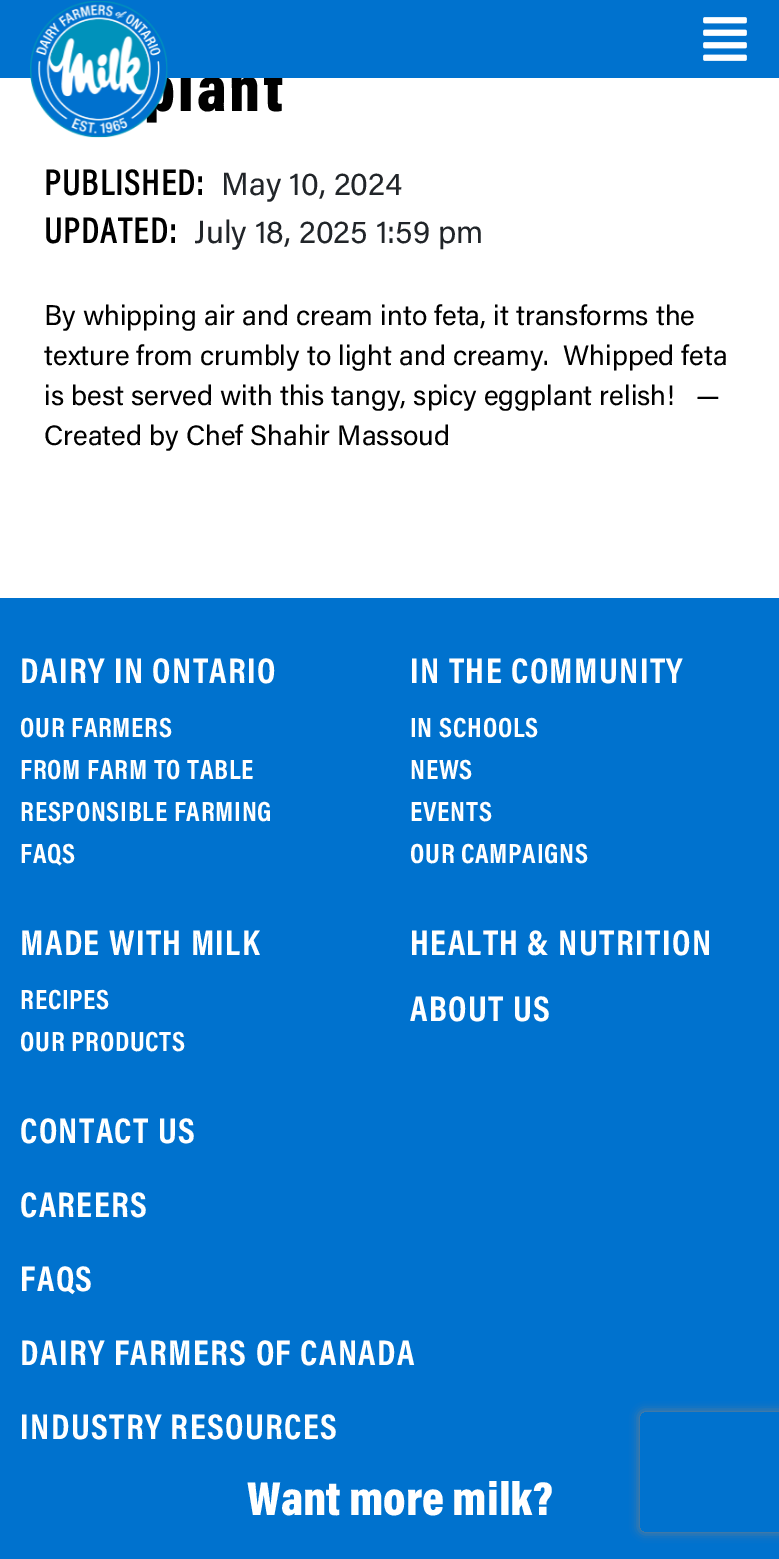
%!PS-Adobe-3.0
%%BoundingBox: 0 0 779 1559
%%LanguageLevel: 3
%%Pages: 1
%%EndComments
%%BeginProlog
/m { moveto } bind def
/l { lineto } bind def
/c { curveto } bind def
/h { closepath } bind def
/q { gsave } bind def
/Q { grestore } bind def
/fn { [ exch dup neg 0 0 3 -1 roll 0 0 ] selectfont } def
/tx { moveto show } def
/bx { rectfill } def
/al { dup .setfillconstantalpha .setstrokeconstantalpha } def
/rr { 5 dict begin { /r /h /w /y /x } { exch def } forall
  x r add y moveto x w add y 2 copy h add r arct x w add y h add x 1 index r arct
  x y h add x y r arct x y 2 copy exch w add exch r arct closepath end } def
/sh { 12 dict begin { /a /b /q /h /w /y /x } { exch def } forall gsave /was 0 def
  9 -2 -9 { dup b mul 4 div /e exch def 1 sub .425 mul 2.718 exch exp 1 add a .99 .min exch div /now exch def
    1 1 now sub 1 was sub div sub al /was now def
    w h .min e 2 mul add 0 gt { x e sub y e sub w e 2 mul add h e 2 mul add
      q e add b .6 mul add w h .min 2 div e add .min 0 .max rr fill } if } for grestore end } def
/im { 5 dict begin { /h /w /y /x /name } { exch def } forall
  gsave x y translate w h scale
  w h 8 [w 0 0 h 0 0] name (r) file false 3 colorimage grestore end } def
%%EndProlog
%%BeginSetup
<< /PageSize [779 1559] /PageUsesTransparency true >> setpagedevice
%%EndSetup
%%Page: 1 1
0 .pushpdf14devicefilter
0 1559 translate 1 -1 scale
4 setmiterlimit
1 setgray
0 0 779 1559 bx
/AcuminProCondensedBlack-Black 64 fn
0 setgray
144 111 m 3 0 (plant) ashow
0 0.447 0.808 setrgbcolor
0 0 779 78 bx
(image0.raw) 30 1 138 137 im
(image1.raw) 703 17 44 44 im
/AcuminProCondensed-Bold 36 fn
0 setgray
44 195 m 1.6 0 (PUBLISHED:) ashow
/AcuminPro-Regular 32 fn
0.129 0.145 0.161 setrgbcolor
(May 10, 2024) 221 195 tx
/AcuminProCondensed-Bold 36 fn
0 setgray
44 243 m 1.6 0 (UPDATED:) ashow
/AcuminPro-Regular 32 fn
0.129 0.145 0.161 setrgbcolor
(July 18, 2025 1:59 pm) 194 243 tx
/NotoSans-Regular 28 fn
0 setgray
(B) 44 325 tx
/AcuminPro-Regular 28 fn
(y whipping air and cream into feta, it transforms the) 62 325 tx
(texture from crumbly to light and creamy.  Whipped feta) 44 365 tx
(is best served with this tangy, spicy eggplant relish!   —) 44 405 tx
(Created by Chef Shahir Massoud) 44 445 tx
0 0.447 0.808 setrgbcolor
0 598 779 961 bx
/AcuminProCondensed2-Bold 36 fn
1 setgray
20 683 m 1.4 0 (DAIRY IN ONTARIO) ashow
/AcuminProCondensed2-Bold 28 fn
20 737 m 0.75 0 (OUR FARMERS) ashow
20 779 m 0.75 0 (FROM FARM TO TABLE) ashow
20 821 m 0.75 0 (RESPONSIBLE FARMING) ashow
20 863 m 0.75 0 (FAQS) ashow
/AcuminProCondensed2-Bold 36 fn
20 955 m 1.4 0 (MADE WITH MILK) ashow
/AcuminProCondensed2-Bold 28 fn
20 1009 m 0.75 0 (RECIPES) ashow
20 1051 m 0.75 0 (OUR PRODUCTS) ashow
/AcuminProCondensed2-Bold 36 fn
410 683 m 1.4 0 (IN THE COMMUNITY) ashow
/AcuminProCondensed2-Bold 28 fn
410 737 m 0.75 0 (IN SCHOOLS) ashow
410 779 m 0.75 0 (NEWS) ashow
410 821 m 0.75 0 (EVENTS) ashow
410 863 m 0.75 0 (OUR CAMPAIGNS) ashow
/AcuminProCondensed2-Bold 36 fn
410 955 m 1.4 0 (HEALTH & NUTRITION) ashow
410 1021 m 1.4 0 (ABOUT US) ashow
20 1143 m 1.4 0 (CONTACT US) ashow
20 1217 m 1.4 0 (CAREERS) ashow
20 1291 m 1.4 0 (FAQS) ashow
20 1365 m 1.4 0 (DAIRY FARMERS OF CANADA) ashow
20 1439 m 1.4 0 (INDUSTRY RESOURCES) ashow
/AcuminProCondensedBlack-Black 48 fn
(Want more milk?) 247 1515 tx
q
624 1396 m 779 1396 l 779 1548 l 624 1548 l h 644 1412 m 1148 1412 l 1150 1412 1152 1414 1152 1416 c 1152 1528 l 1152 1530 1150 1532 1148 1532 c 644 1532 l 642 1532 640 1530 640 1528 c 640 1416 l 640 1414 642 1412 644 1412 c h eoclip newpath
0.502 setgray
640 1412 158 120 4 5 1 sh
Q
.poppdf14devicefilter showpage
%%EOF
